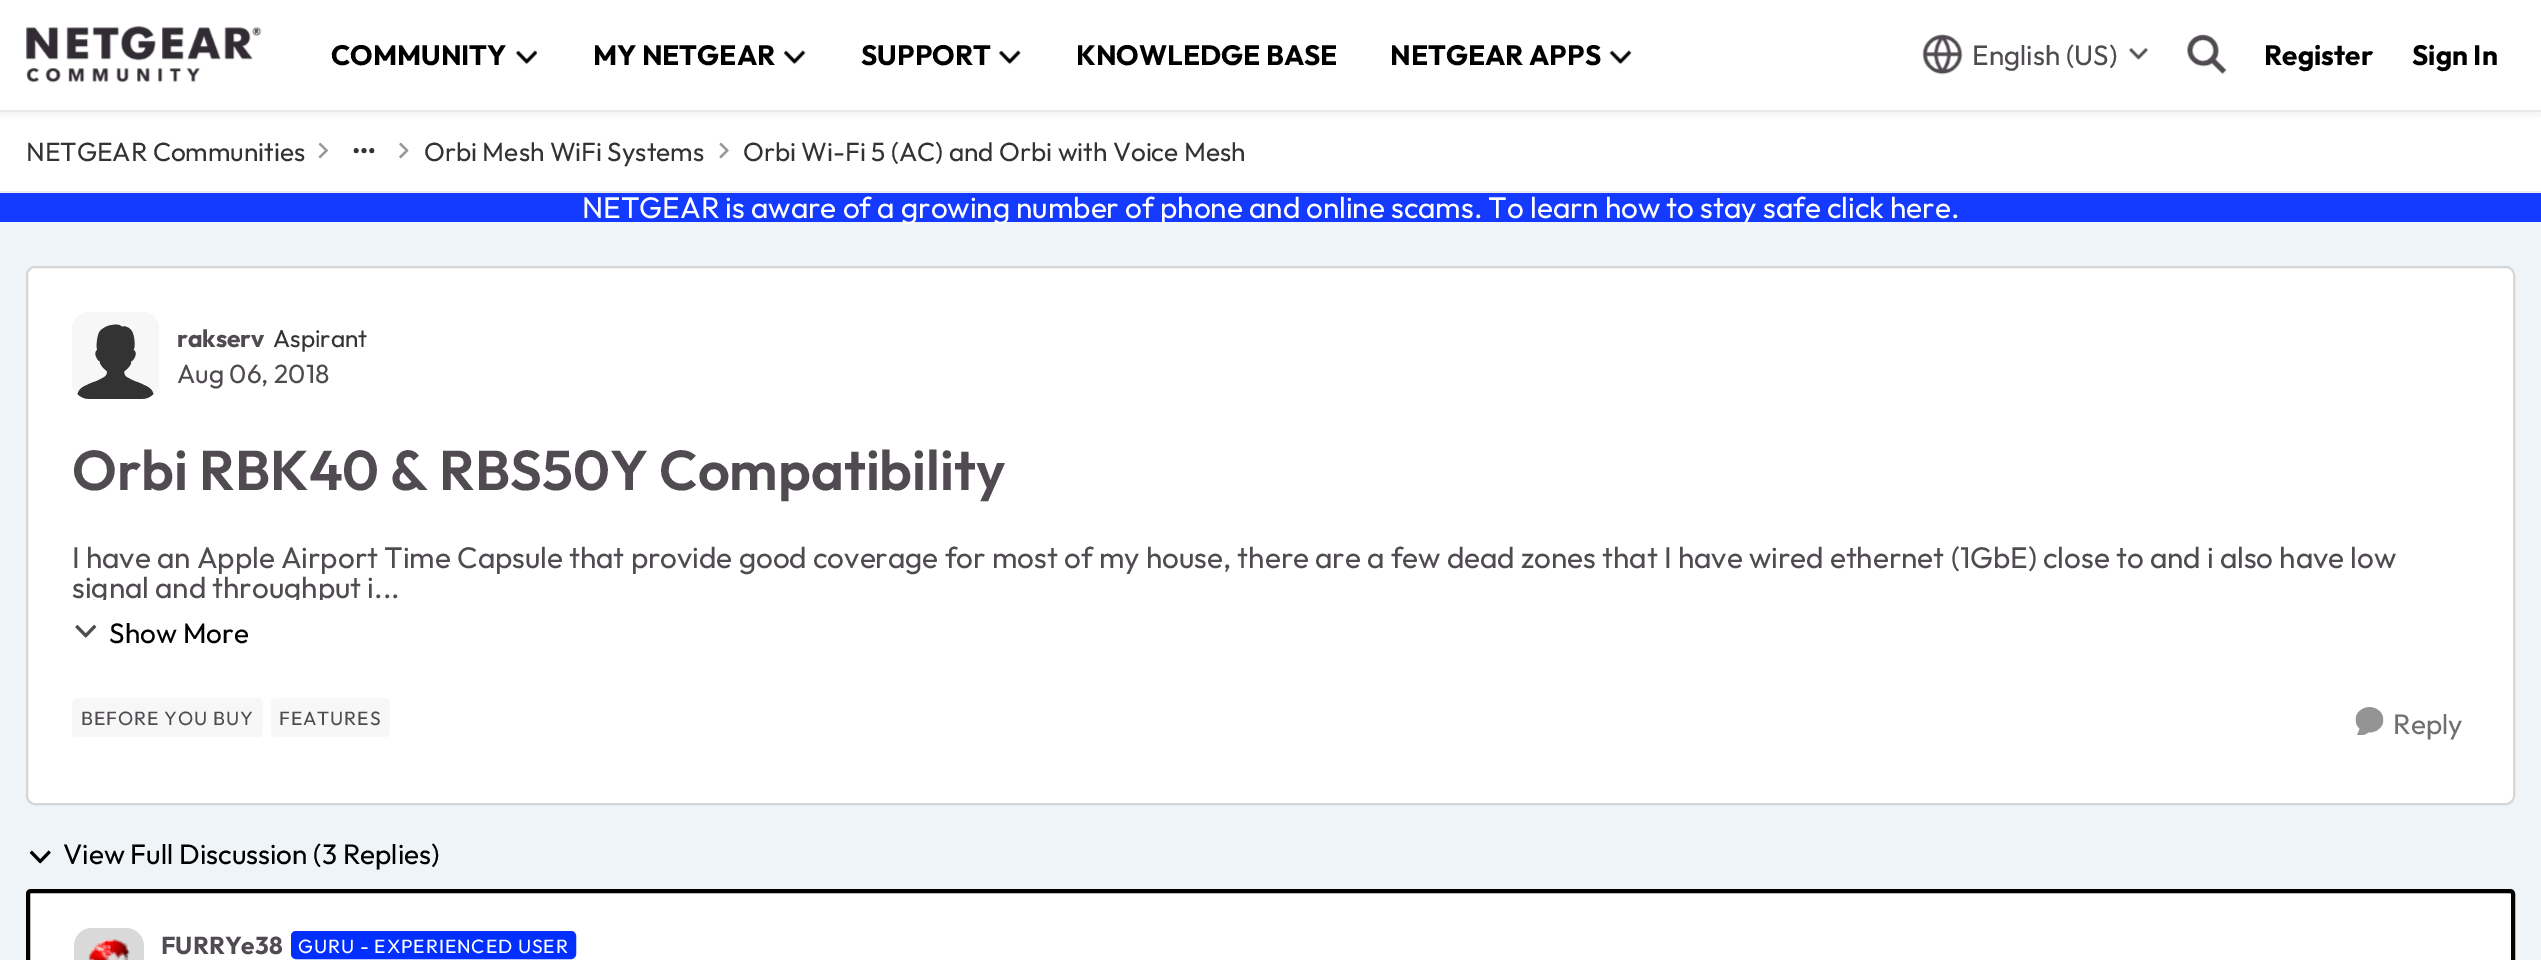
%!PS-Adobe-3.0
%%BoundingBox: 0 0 2541 960
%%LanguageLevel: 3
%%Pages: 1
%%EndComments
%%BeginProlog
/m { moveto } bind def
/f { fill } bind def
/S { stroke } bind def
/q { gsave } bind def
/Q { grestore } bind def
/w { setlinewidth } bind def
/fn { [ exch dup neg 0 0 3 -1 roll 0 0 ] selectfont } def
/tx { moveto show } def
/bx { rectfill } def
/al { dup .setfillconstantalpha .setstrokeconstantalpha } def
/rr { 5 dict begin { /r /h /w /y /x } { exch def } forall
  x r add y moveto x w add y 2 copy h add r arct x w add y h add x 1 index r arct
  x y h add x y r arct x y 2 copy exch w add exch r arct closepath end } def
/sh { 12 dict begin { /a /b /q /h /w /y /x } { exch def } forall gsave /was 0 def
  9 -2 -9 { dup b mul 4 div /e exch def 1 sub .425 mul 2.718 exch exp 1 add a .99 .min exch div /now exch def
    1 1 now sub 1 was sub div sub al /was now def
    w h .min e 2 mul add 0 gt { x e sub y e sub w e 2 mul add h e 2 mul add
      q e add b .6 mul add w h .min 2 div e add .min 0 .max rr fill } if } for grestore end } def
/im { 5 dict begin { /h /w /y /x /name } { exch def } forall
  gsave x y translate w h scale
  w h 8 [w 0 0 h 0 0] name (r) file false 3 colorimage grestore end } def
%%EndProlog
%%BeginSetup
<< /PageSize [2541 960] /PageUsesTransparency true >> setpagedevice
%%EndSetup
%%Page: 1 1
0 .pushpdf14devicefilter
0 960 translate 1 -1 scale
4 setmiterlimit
0.937 0.957 0.976 setrgbcolor
0 0 2541 960 bx
1 setgray
0 0 2541 191 bx
q
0 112 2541 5 rectclip
0.2 setgray
0 4 2541 112 0 3.5 0.06 sh
Q
0.922 setgray
0 110 2541 2 bx
(image0.raw) 26 26 236 57 im
/Outfit-Bold 28 fn
0 setgray
(COMMUNITY) 331 65 tx
(image1.raw) 516 50 21 15 im
(MY NETGEAR) 593 65 tx
(image2.raw) 783 50 23 15 im
(SUPPORT) 861 65 tx
(image3.raw) 999 50 22 15 im
(KNOWLEDGE BASE) 1076 65 tx
(NETGEAR APPS) 1390 65 tx
(image4.raw) 1609 50 23 15 im
(image5.raw) 1922 34 41 41 im
/Outfit-Regular 28 fn
0.314 0.294 0.318 setrgbcolor
(English \(US\)) 1972 65 tx
(image6.raw) 2129 48 19 12 im
(image7.raw) 2187 34 40 41 im
/Outfit-Bold 28 fn
0 setgray
(Register) 2264 65 tx
(Sign In) 2412 65 tx
0.922 setgray
0 191 2541 2 bx
/Outfit-Regular 26.25 fn
0.2 setgray
(NETGEAR Communities) 26 161 tx
(image8.raw) 318 142 10 17 im
(image9.raw) 353 148 22 6 im
(image10.raw) 399 142 10 17 im
(Orbi Mesh WiFi Systems) 424 161 tx
(image11.raw) 719 142 10 17 im
(Orbi Wi-Fi 5 \(AC\) and Orbi with Voice Mesh) 743 161 tx
0.078 0.224 1 setrgbcolor
0 193 2541 29 bx
/Outfit-Regular 29.75 fn
1 setgray
(NETGEAR is aware of a growing number of phone and online scams. To learn how to stay safe click here.) 582 218 tx
26 266 2489 539 9 rr f
0.16 al
0 setgray
2 w
27 267 2487 537 8 rr S
1 al
(image12.raw) 72 312 87 87 im
/Outfit-Bold 24.5 fn
0.314 0.294 0.318 setrgbcolor
(rakserv) 177 347 tx
/Outfit-Regular 24.5 fn
0.2 setgray
(Aspirant) 273 347 tx
/Outfit-Regular 26.25 fn
0.314 0.294 0.318 setrgbcolor
(Aug 06, 2018) 177 383 tx
/Outfit-SemiBold 56 fn
(Orbi RBK40 & RBS50Y Compatibility) 72 490 tx
/Outfit-Regular 29.75 fn
(I have an Apple Airport Time Capsule that provide good coverage for most of my house, there are a few dead zones that I have wired ethernet \(1GbE\) close to and i also have low) 72 568 tx
q
72 541 2397 59 rectclip
(signal and throughput i...) 72 598 tx
Q
(image13.raw) 75 624 22 14 im
/Outfit-Regular 28 fn
0 setgray
(Show More) 109 643 tx
0.969 setgray
72 698 191 39 5 rr f
/Outfit-Regular 19.25 fn
0.314 0.294 0.318 setrgbcolor
81 725 m 0.9 0 (BEFORE YOU BUY) ashow
0.969 setgray
271 698 119 39 5 rr f
0.314 0.294 0.318 setrgbcolor
279 725 m 0.9 0 (FEATURES) ashow
(image14.raw) 2355 707 29 28 im
/Outfit-Regular 28 fn
0.439 setgray
(Reply) 2393 734 tx
(image15.raw) 29 850 22 14 im
0 setgray
(View Full Discussion \(3 Replies\)) 63 864 tx
1 setgray
28 891 2485 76 3 rr q f Q
0 setgray
4 w
S
0.851 setgray
74 928 70 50 18 rr f
(image16.raw) 88 939 42 21 im
/Outfit-Bold 24.5 fn
0.314 0.294 0.318 setrgbcolor
(FURRYe38) 161 954 tx
0 0.184 1 setrgbcolor
292 932 283 26 4 rr q f Q
2 w
S
/Outfit-Regular 19.25 fn
1 setgray
298 953 m 0.9 0 (GURU - EXPERIENCED USER) ashow
.poppdf14devicefilter showpage
%%EOF
